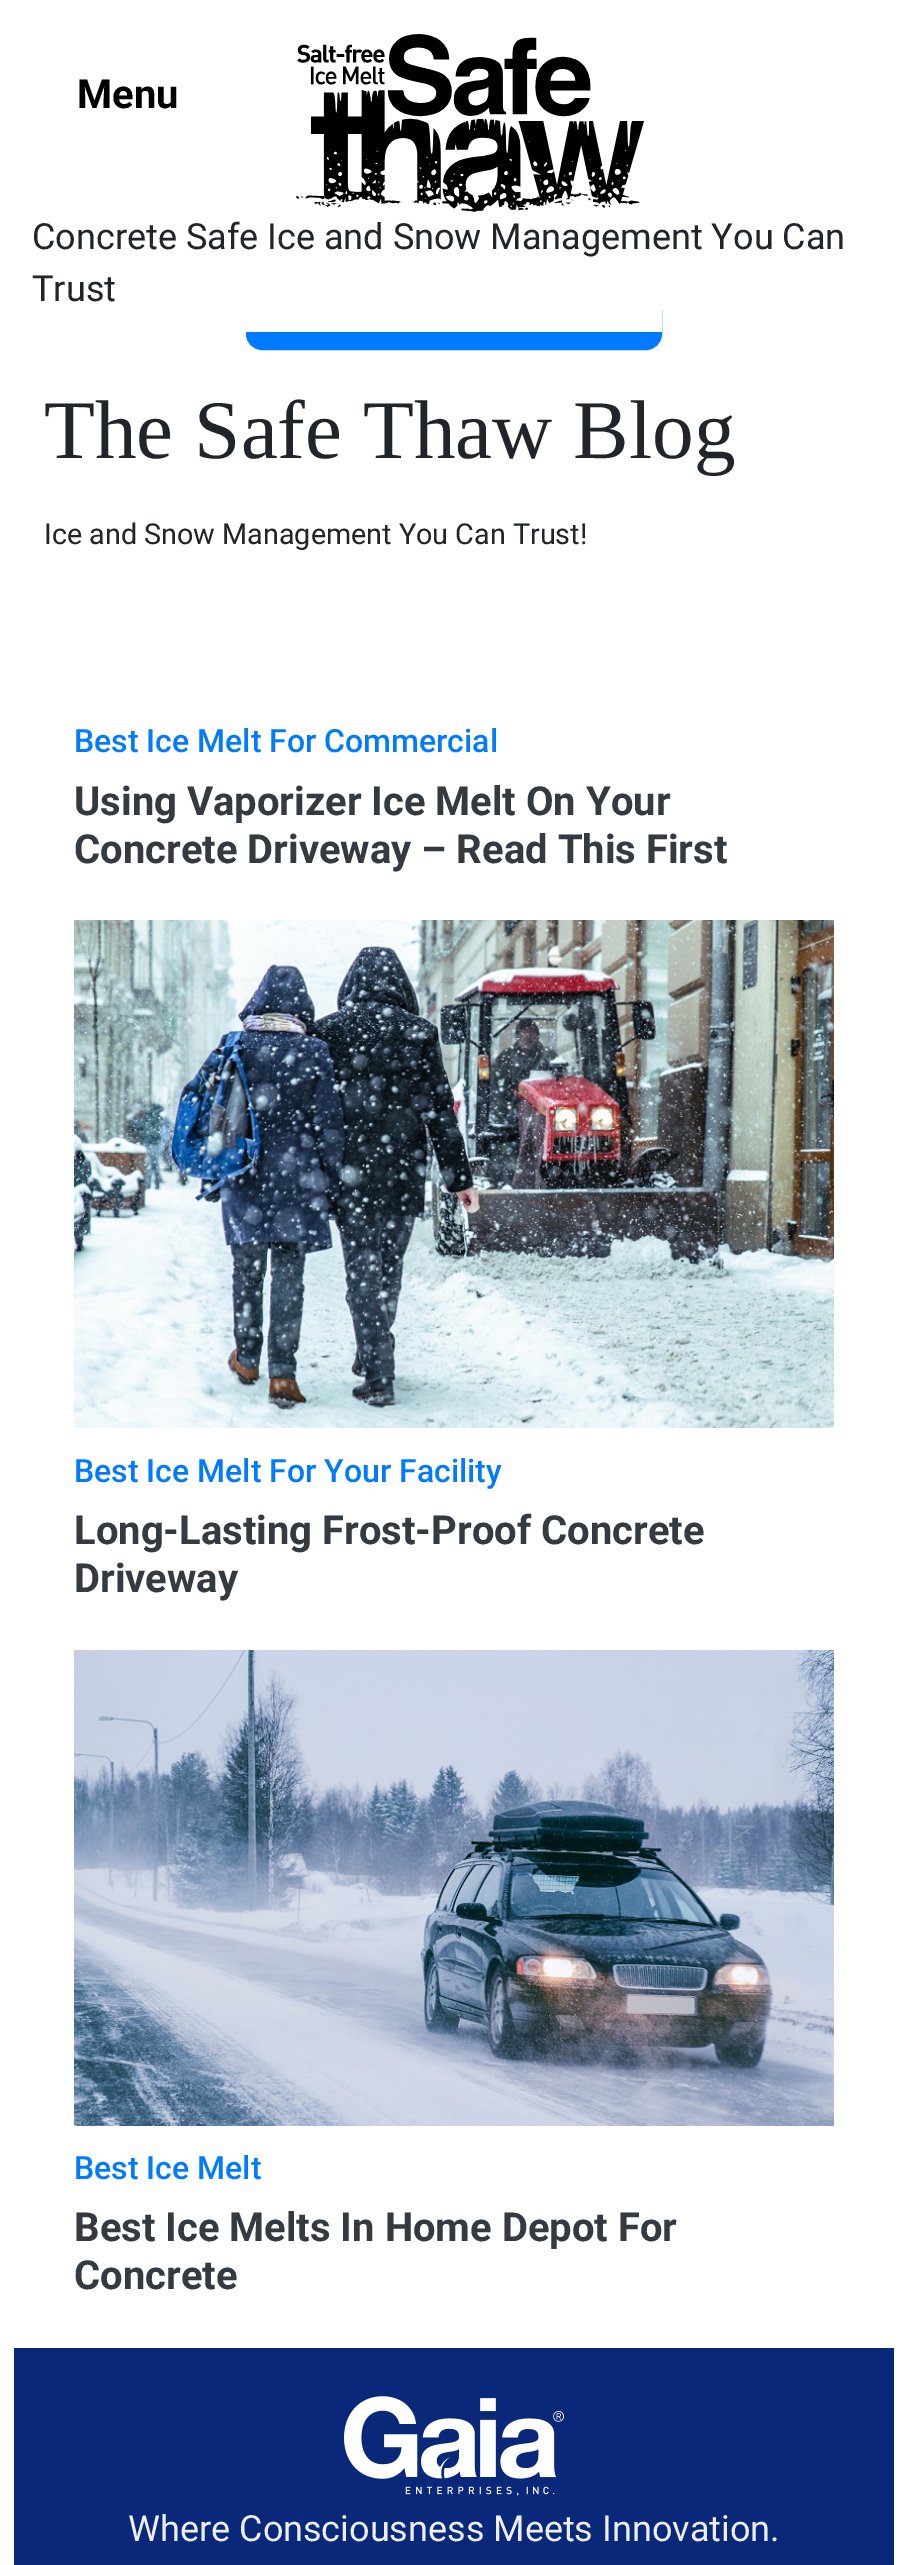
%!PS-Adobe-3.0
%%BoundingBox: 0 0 908 2565
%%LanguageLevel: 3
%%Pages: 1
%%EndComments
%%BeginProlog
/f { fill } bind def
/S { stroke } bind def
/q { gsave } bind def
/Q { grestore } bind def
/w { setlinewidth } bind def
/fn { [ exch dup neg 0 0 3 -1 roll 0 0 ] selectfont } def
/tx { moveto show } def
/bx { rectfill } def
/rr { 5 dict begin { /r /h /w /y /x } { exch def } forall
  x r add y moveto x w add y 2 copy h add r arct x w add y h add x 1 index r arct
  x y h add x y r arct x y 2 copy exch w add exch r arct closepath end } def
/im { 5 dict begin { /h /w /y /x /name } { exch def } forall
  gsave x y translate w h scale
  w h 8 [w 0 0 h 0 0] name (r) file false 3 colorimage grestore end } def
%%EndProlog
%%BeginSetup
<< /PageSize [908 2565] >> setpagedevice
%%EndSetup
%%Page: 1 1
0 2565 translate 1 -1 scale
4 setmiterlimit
1 setgray
0 0 908 2565 bx
0 0.482 1 setrgbcolor
247 297 414 52 15 rr q f Q
2 w
S
1 setgray
246 296 416 36 bx
/Roboto-Bold 40 fn
0 setgray
(Menu) 77 108 tx
(image0.raw) 296 34 348 178 im
/Roboto-Regular 36 fn
0.129 0.145 0.161 setrgbcolor
(Concrete Safe Ice and Snow Management You Can) 32 249 tx
(Trust) 32 301 tx
/LiberationSerif-Regular 83.25 fn
(The Safe Thaw Blog) 44 458 tx
/Roboto-Regular 28.75 fn
(Ice and Snow Management You Can Trust!) 44 544 tx
/Roboto-Medium 32 fn
0 0.482 1 setrgbcolor
(Best Ice Melt For Commercial) 74 752 tx
/Roboto-Bold 40 fn
0.204 0.227 0.251 setrgbcolor
(Using Vaporizer Ice Melt On Your) 74 815 tx
(Concrete Driveway – Read This First) 74 863 tx
(image1.raw) 74 920 760 508 im
/Roboto-Medium 32 fn
0 0.482 1 setrgbcolor
(Best Ice Melt For Your Facility) 74 1482 tx
/Roboto-Bold 40 fn
0.204 0.227 0.251 setrgbcolor
(Long-Lasting Frost-Proof Concrete) 74 1544 tx
(Driveway) 74 1592 tx
(image2.raw) 74 1650 760 476 im
/Roboto-Medium 32 fn
0 0.482 1 setrgbcolor
(Best Ice Melt) 74 2179 tx
/Roboto-Bold 40 fn
0.204 0.227 0.251 setrgbcolor
(Best Ice Melts In Home Depot For) 74 2241 tx
(Concrete) 74 2289 tx
0.035 0.157 0.475 setrgbcolor
14 2348 880 217 bx
(image3.raw) 344 2396 220 100 im
/Roboto-Regular 36 fn
0.929 0.937 0.937 setrgbcolor
(Where Consciousness Meets Innovation.) 128 2541 tx
showpage
%%EOF
